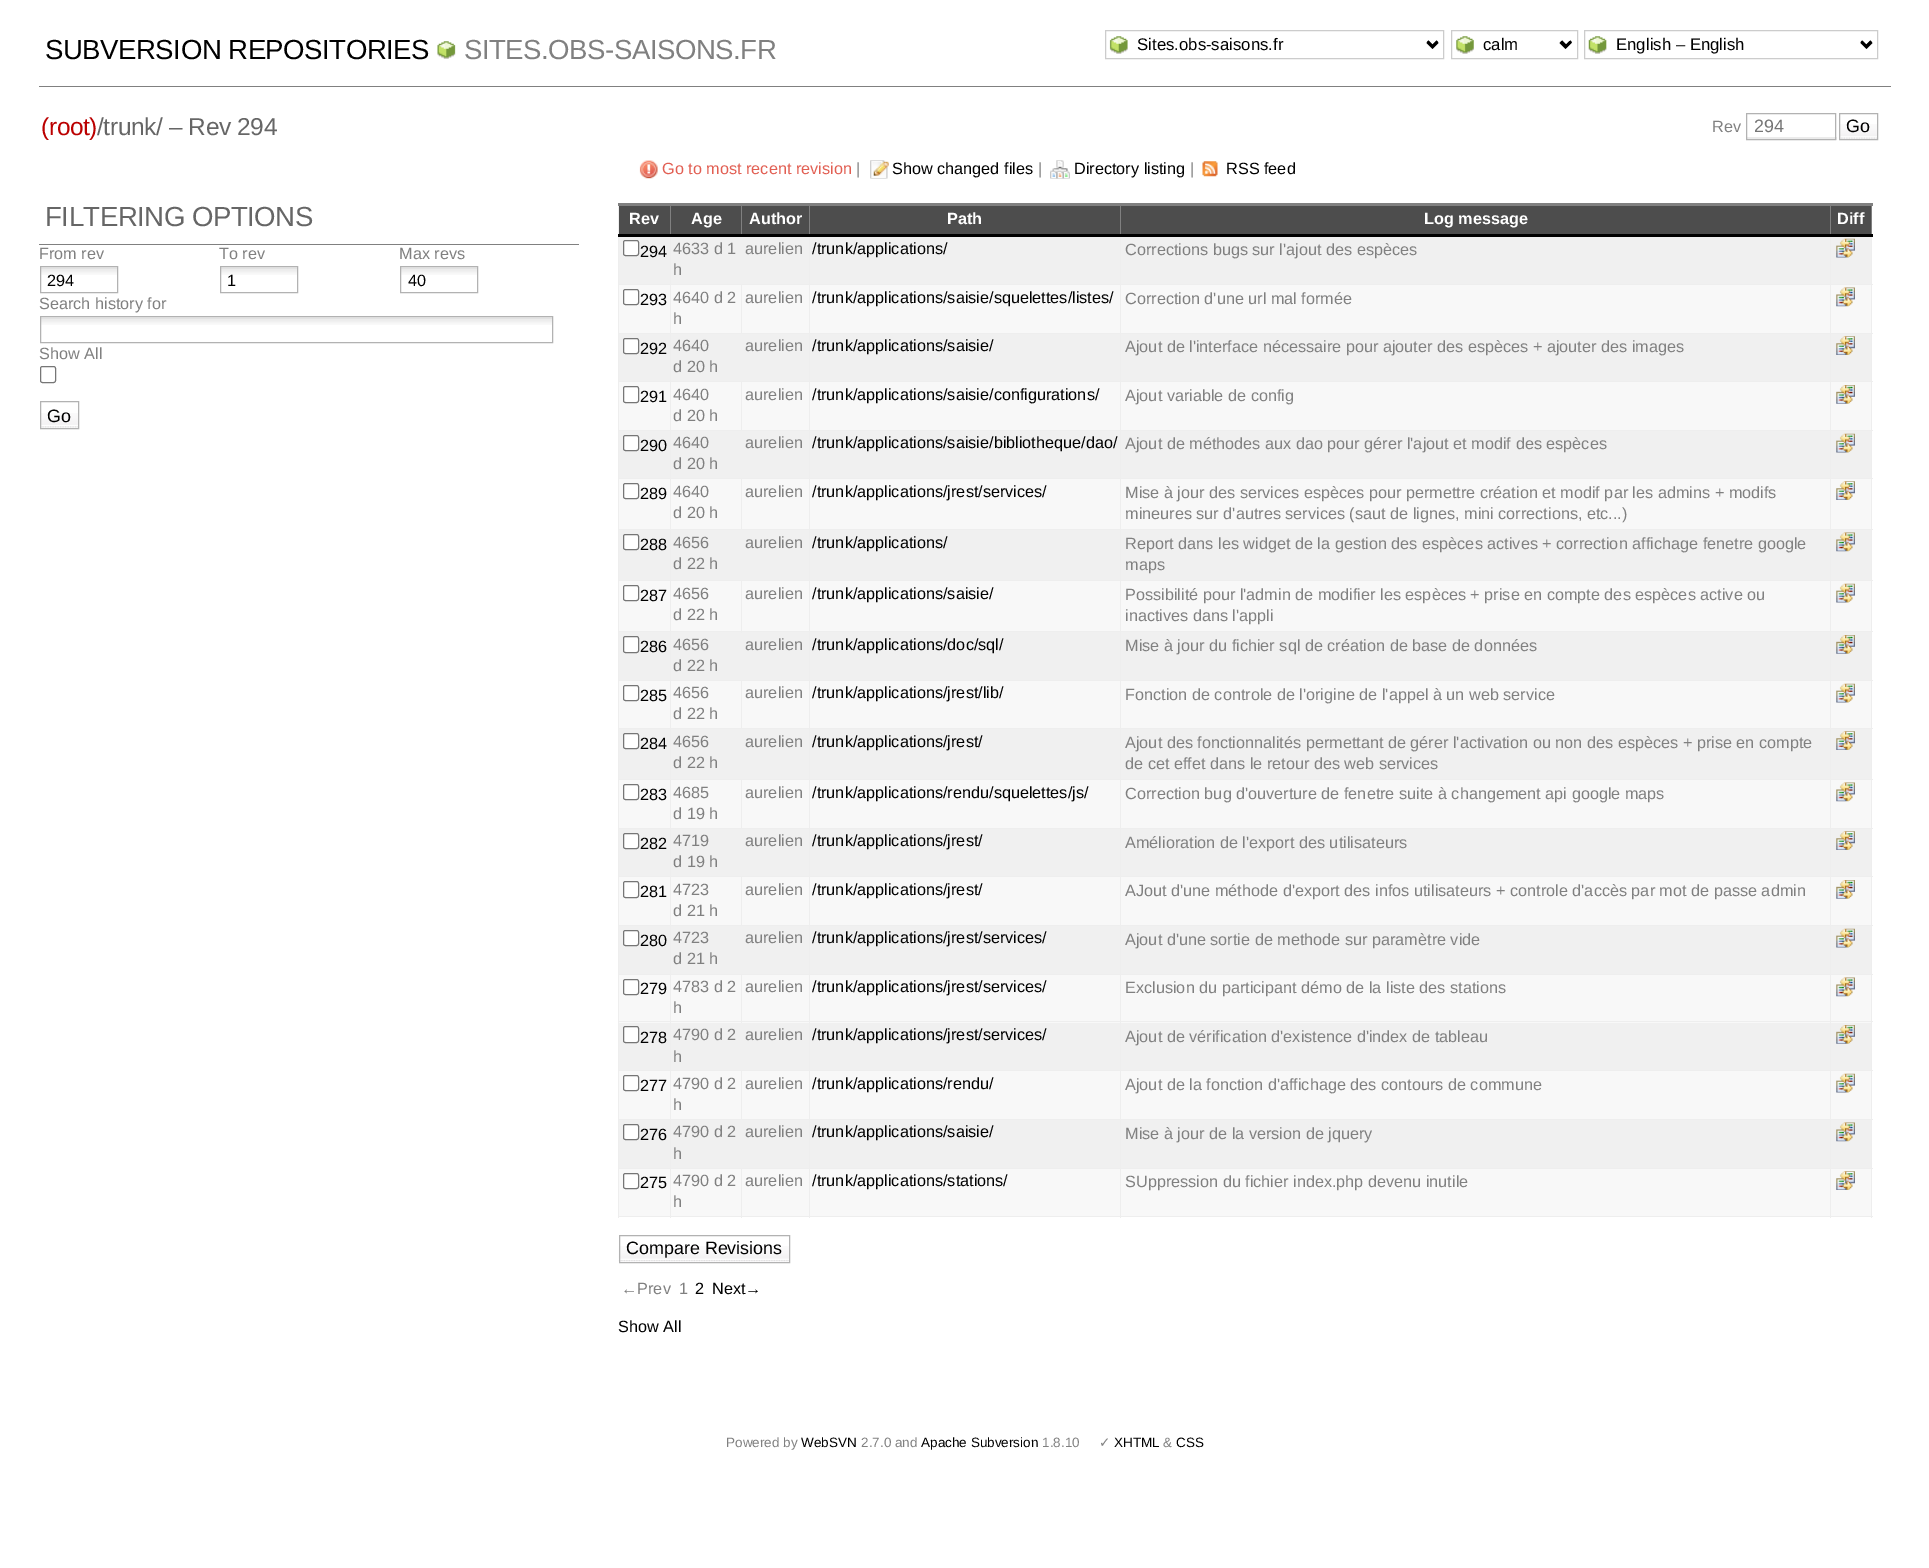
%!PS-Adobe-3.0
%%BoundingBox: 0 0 1929 1568
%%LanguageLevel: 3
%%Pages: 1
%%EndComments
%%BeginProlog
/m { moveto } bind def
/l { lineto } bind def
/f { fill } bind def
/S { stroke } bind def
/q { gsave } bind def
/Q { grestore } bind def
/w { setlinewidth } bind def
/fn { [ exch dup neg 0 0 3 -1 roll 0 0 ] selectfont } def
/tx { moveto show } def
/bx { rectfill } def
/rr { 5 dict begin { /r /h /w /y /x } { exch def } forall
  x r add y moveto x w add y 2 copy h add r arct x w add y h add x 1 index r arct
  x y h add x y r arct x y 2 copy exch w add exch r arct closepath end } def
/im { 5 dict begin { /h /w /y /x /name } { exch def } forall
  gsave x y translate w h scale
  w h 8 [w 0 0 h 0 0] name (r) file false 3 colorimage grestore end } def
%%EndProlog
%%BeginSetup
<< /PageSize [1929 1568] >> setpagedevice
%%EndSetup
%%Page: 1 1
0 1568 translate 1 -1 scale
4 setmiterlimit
1 setgray
0 0 1929 1568 bx
0.502 setgray
39 86 1852 1 bx
/LiberationSans-Regular 27.6 fn
0 setgray
45 59 m -0.5 0 (SUBVERSION REPOSITORIES) ashow
(image0.raw) 437 41 19 18 im
0.502 setgray
464 59 m -0.5 0 (SITES.OBS-SAISONS.FR) ashow
(image1.raw) 1109 36 330 18 im
0.8 setgray
1105.5 30.5 338 28 rectstroke
0 setgray
2.5 w
1427.5 42 m 1432.5 47 l 1437.5 42 l S
/LiberationSans-Regular 16.75 fn
(Sites.obs-saisons.fr) 1137 50 tx
(image2.raw) 1456 36 116 18 im
0.8 setgray
1 w
1451.5 30.5 126 28 rectstroke
0 setgray
2.5 w
1560.5 42 m 1565.5 47 l 1570.5 42 l S
(calm) 1483 50 tx
(image3.raw) 1588 36 284 18 im
0.8 setgray
1 w
1584.5 30.5 293 28 rectstroke
0 setgray
2.5 w
1861.5 42 m 1866.5 47 l 1871.5 42 l S
(English – English) 1616 50 tx
/LiberationSans-Regular 24.5 fn
0.733 0 0 setrgbcolor
41 135 m -0.4 0 (\(root\)) ashow
0.4 setgray
97 135 m -0.4 0 (/trunk/ – Rev 294) ashow
/LiberationSans-Regular 16.25 fn
0.502 setgray
(Rev) 1712 132 tx
0.922 setgray
1746 137 91 3 bx
0.698 setgray
1 w
1746.5 113.5 89 26 rectstroke
/LiberationSans-Regular 17.9 fn
0.459 setgray
(294) 1754 132 tx
(image4.raw) 1840 124 37 15 im
0.698 setgray
1839.5 113.5 38 26 rectstroke
0 setgray
(Go) 1846 132 tx
(image5.raw) 639 160 19 19 im
/LiberationSans-Regular 16.25 fn
0.886 0.373 0.325 setrgbcolor
(Go to most recent revision) 662 174 tx
0.502 setgray
(|) 856 174 tx
(image6.raw) 870 160 19 19 im
0 setgray
(Show changed files) 892 174 tx
0.502 setgray
(|) 1038 174 tx
(image7.raw) 1050 160 20 19 im
0 setgray
(Directory listing) 1074 174 tx
0.502 setgray
(|) 1190 174 tx
(image8.raw) 1202 161 16 16 im
0 setgray
(RSS feed) 1226 174 tx
0.502 setgray
39 244 540 1 bx
/LiberationSans-Regular 27.6 fn
0.4 setgray
45 226 m -0.5 0 (FILTERING OPTIONS) ashow
/LiberationSans-Regular 16.25 fn
0.502 setgray
(From rev) 39 259 tx
(To rev) 219 259 tx
(Max revs) 399 259 tx
(image9.raw) 41 267 76 8 im
0.698 setgray
40.5 266.5 77 26 rectstroke
0 setgray
(294) 47 286 tx
(image9.raw) 221 267 76 8 im
0.698 setgray
220.5 266.5 77 26 rectstroke
0 setgray
(1) 227 286 tx
(image9.raw) 401 267 76 8 im
0.698 setgray
400.5 266.5 77 26 rectstroke
0 setgray
(40) 408 286 tx
0.502 setgray
(Search history for) 39 309 tx
(image10.raw) 41 317 511 8 im
0.698 setgray
40.5 316.5 512 26 rectstroke
0.502 setgray
(Show All) 39 359 tx
0.463 setgray
40.5 366.5 15 16 2 rr S
(image11.raw) 41 413 37 15 im
0.698 setgray
40.5 401.5 38 27 rectstroke
/LiberationSans-Regular 17.9 fn
0 setgray
(Go) 47 422 tx
0.302 setgray
619 206 1252 28 bx
0.933 setgray
1830 284 43 1 bx
1830 333 43 1 bx
1830 381 43 1 bx
1830 430 43 1 bx
1830 478 43 1 bx
1830 529 43 1 bx
1830 580 43 1 bx
1830 631 43 1 bx
1830 680 43 1 bx
1830 728 43 1 bx
1830 779 43 1 bx
1830 828 43 1 bx
1830 876 43 1 bx
1830 925 43 1 bx
1830 974 43 1 bx
0.973 setgray
1121 975 709 48 bx
1831 975 40 48 bx
0.933 setgray
1830 1021 43 1 bx
1830 1070 43 1 bx
1830 1119 43 1 bx
1830 1168 43 1 bx
1871 1168 1 50 bx
1830 1216 43 1 bx
1830 1168 1 50 bx
1120 1168 711 1 bx
1830 1119 1 50 bx
1120 1119 711 1 bx
1830 1070 1 50 bx
1120 1070 711 1 bx
1830 1021 1 50 bx
1120 1021 711 1 bx
1830 974 1 49 bx
1120 974 711 1 bx
1830 925 1 50 bx
1120 925 711 1 bx
1830 876 1 50 bx
1120 876 711 1 bx
1830 828 1 50 bx
1120 828 711 1 bx
1830 779 1 50 bx
1120 779 711 1 bx
1830 728 1 52 bx
1120 728 711 1 bx
1830 680 1 49 bx
1120 680 711 1 bx
1830 631 1 50 bx
1120 631 711 1 bx
1830 580 1 53 bx
1120 580 711 1 bx
1830 529 1 52 bx
1120 529 711 1 bx
1830 478 1 52 bx
1120 478 711 1 bx
1830 430 1 49 bx
1120 430 711 1 bx
1830 381 1 50 bx
1120 381 711 1 bx
1830 333 1 50 bx
1120 333 711 1 bx
1830 284 1 50 bx
1120 284 711 1 bx
0.973 setgray
810 975 310 48 bx
0.933 setgray
1120 1216 711 1 bx
1120 1168 1 50 bx
809 1168 312 1 bx
1120 1119 1 50 bx
809 1119 312 1 bx
1120 1070 1 50 bx
809 1070 312 1 bx
1120 1021 1 50 bx
809 1021 312 1 bx
1120 974 1 49 bx
809 974 312 1 bx
1120 925 1 50 bx
809 925 312 1 bx
1120 876 1 50 bx
809 876 312 1 bx
1120 828 1 50 bx
809 828 312 1 bx
1120 779 1 50 bx
809 779 312 1 bx
1120 728 1 52 bx
809 728 312 1 bx
1120 680 1 49 bx
809 680 312 1 bx
1120 631 1 50 bx
809 631 312 1 bx
1120 580 1 53 bx
809 580 312 1 bx
1120 529 1 52 bx
809 529 312 1 bx
1120 478 1 52 bx
809 478 312 1 bx
1120 430 1 49 bx
809 430 312 1 bx
1120 381 1 50 bx
809 381 312 1 bx
1120 333 1 50 bx
809 333 312 1 bx
1120 284 1 50 bx
809 284 312 1 bx
0.973 setgray
671 975 138 48 bx
0.933 setgray
809 1216 312 1 bx
809 1168 1 50 bx
741 1168 69 1 bx
809 1119 1 50 bx
670 1119 140 1 bx
809 1070 1 50 bx
741 1070 69 1 bx
809 1021 1 50 bx
741 1021 69 1 bx
809 974 1 49 bx
741 974 69 1 bx
809 925 1 50 bx
670 925 140 1 bx
809 876 1 50 bx
741 876 69 1 bx
809 828 1 50 bx
670 828 140 1 bx
809 779 1 50 bx
741 779 69 1 bx
809 728 1 52 bx
670 728 140 1 bx
809 680 1 49 bx
741 680 69 1 bx
809 631 1 50 bx
670 631 140 1 bx
809 580 1 53 bx
741 580 69 1 bx
809 529 1 52 bx
670 529 140 1 bx
809 478 1 52 bx
741 478 69 1 bx
809 430 1 49 bx
670 430 140 1 bx
809 381 1 50 bx
741 381 69 1 bx
809 333 1 50 bx
670 333 140 1 bx
809 284 1 50 bx
741 284 69 1 bx
0.973 setgray
671 285 138 48 bx
0.933 setgray
741 284 1 50 bx
670 284 73 1 bx
0.973 setgray
671 382 138 48 bx
0.933 setgray
741 381 1 50 bx
670 381 73 1 bx
0.973 setgray
671 479 138 50 bx
0.933 setgray
741 478 1 52 bx
670 478 73 1 bx
0.973 setgray
671 581 138 50 bx
0.941 setgray
671 632 138 48 bx
0.933 setgray
741 580 1 53 bx
670 580 73 1 bx
0.973 setgray
671 681 138 47 bx
0.933 setgray
741 680 1 49 bx
670 680 73 1 bx
0.973 setgray
671 780 138 48 bx
0.933 setgray
741 779 1 50 bx
670 779 73 1 bx
0.973 setgray
671 877 138 48 bx
0.933 setgray
741 876 1 50 bx
670 876 73 1 bx
741 1021 1 2 bx
670 1021 73 1 bx
741 974 1 49 bx
670 974 73 1 bx
0.973 setgray
619 975 51 48 bx
671 1071 138 48 bx
0.933 setgray
741 1070 1 50 bx
670 1070 73 1 bx
0.973 setgray
671 1169 138 47 bx
0.933 setgray
741 1216 69 1 bx
741 1168 1 50 bx
670 1168 73 1 bx
670 1216 73 1 bx
670 1168 1 50 bx
618 1168 53 1 bx
670 1119 1 50 bx
618 1119 53 1 bx
670 1070 1 50 bx
618 1070 53 1 bx
670 1021 1 50 bx
618 1021 53 1 bx
670 974 1 49 bx
618 974 53 1 bx
670 925 1 50 bx
618 925 53 1 bx
670 876 1 50 bx
618 876 53 1 bx
670 828 1 50 bx
618 828 53 1 bx
670 779 1 50 bx
618 779 53 1 bx
670 728 1 52 bx
618 728 53 1 bx
670 680 1 49 bx
618 680 53 1 bx
670 631 1 50 bx
618 631 53 1 bx
670 580 1 53 bx
618 580 53 1 bx
670 529 1 52 bx
618 529 53 1 bx
670 478 1 52 bx
618 478 53 1 bx
670 430 1 49 bx
618 430 53 1 bx
670 381 1 50 bx
618 381 53 1 bx
670 333 1 50 bx
618 333 53 1 bx
670 284 1 50 bx
618 284 53 1 bx
670 235 1 50 bx
0.502 setgray
670 204 1 32 bx
/LiberationSans-Bold 16.25 fn
1 setgray
(Rev) 629 224 tx
0.933 setgray
741 235 1 2 bx
0.502 setgray
741 204 1 32 bx
1 setgray
(Age) 691 224 tx
0.933 setgray
809 235 1 50 bx
0.502 setgray
809 204 1 32 bx
1 setgray
(Author) 749 224 tx
0.933 setgray
1120 235 1 50 bx
0.502 setgray
1120 204 1 32 bx
1 setgray
(Path) 947 224 tx
0.933 setgray
1830 235 1 50 bx
0.502 setgray
1830 204 1 32 bx
1 setgray
(Log message) 1424 224 tx
0.933 setgray
1871 1119 1 50 bx
1871 1070 1 50 bx
1871 1021 1 50 bx
1871 974 1 49 bx
1871 925 1 50 bx
1871 876 1 50 bx
1871 828 1 50 bx
1871 779 1 50 bx
1871 728 1 52 bx
1871 680 1 49 bx
1871 631 1 50 bx
1871 580 1 53 bx
1871 529 1 52 bx
1871 478 1 52 bx
1871 430 1 49 bx
1871 381 1 50 bx
1871 333 1 50 bx
1871 235 1 99 bx
0.502 setgray
1871 204 1 32 bx
0.933 setgray
618 1216 53 1 bx
618 1168 1 50 bx
618 1119 1 50 bx
618 1070 1 50 bx
618 1021 1 50 bx
618 974 1 49 bx
618 925 1 50 bx
618 876 1 50 bx
618 828 1 50 bx
618 779 1 50 bx
618 728 1 52 bx
618 680 1 49 bx
618 631 1 50 bx
618 580 1 53 bx
618 529 1 52 bx
618 478 1 52 bx
618 430 1 49 bx
618 381 1 50 bx
618 333 1 50 bx
618 204 1 130 bx
0.502 setgray
618 203 1255 3 bx
0 setgray
618 234 1255 3 bx
1 setgray
(Diff) 1837 224 tx
0.941 setgray
619 237 51 47 bx
1 setgray
623.5 240.5 15 15 2 rr q f Q
0.463 setgray
S
/LiberationSans-Regular 16.25 fn
0 setgray
(294) 640 257 tx
0.941 setgray
671 237 138 47 bx
0.502 setgray
(4633 d 1) 673 254 tx
(h) 673 275 tx
(aurelien) 745 254 tx
0.941 setgray
810 237 310 47 bx
0 setgray
(/trunk/applications/) 812 254 tx
0.941 setgray
1121 237 709 47 bx
0.502 setgray
(Corrections bugs sur l'ajout des espèces) 1125 255 tx
0.941 setgray
1831 237 40 47 bx
(image12.raw) 1836 238 19 20 im
0.973 setgray
619 285 51 48 bx
1 setgray
623.5 289.5 15 15 2 rr q f Q
0.463 setgray
S
0 setgray
(293) 640 305 tx
0.502 setgray
(4640 d 2) 673 303 tx
(h) 673 324 tx
(aurelien) 745 303 tx
0.973 setgray
810 285 310 48 bx
0 setgray
(/trunk/applications/saisie/squelettes/listes/) 812 303 tx
0.973 setgray
1121 285 709 48 bx
0.502 setgray
(Correction d'une url mal formée) 1125 304 tx
0.973 setgray
1831 285 40 48 bx
(image13.raw) 1836 287 19 20 im
0.941 setgray
619 334 51 47 bx
1 setgray
623.5 338.5 15 15 2 rr q f Q
0.463 setgray
S
0 setgray
(292) 640 354 tx
0.941 setgray
671 334 138 47 bx
0.502 setgray
(4640) 673 351 tx
(d 20 h) 673 372 tx
(aurelien) 745 351 tx
0.941 setgray
810 334 310 47 bx
0 setgray
(/trunk/applications/saisie/) 812 351 tx
0.941 setgray
1121 334 709 47 bx
0.502 setgray
(Ajout de l'interface nécessaire pour ajouter des espèces + ajouter des images) 1125 352 tx
0.941 setgray
1831 334 40 47 bx
(image14.raw) 1836 336 19 19 im
0.973 setgray
619 382 51 48 bx
1 setgray
623.5 386.5 15 16 2 rr q f Q
0.463 setgray
S
0 setgray
(291) 640 402 tx
0.502 setgray
(4640) 673 400 tx
(d 20 h) 673 421 tx
(aurelien) 745 400 tx
0.973 setgray
810 382 310 48 bx
0 setgray
(/trunk/applications/saisie/configurations/) 812 400 tx
0.973 setgray
1121 382 709 48 bx
0.502 setgray
(Ajout variable de config) 1125 401 tx
0.973 setgray
1831 382 40 48 bx
(image15.raw) 1836 385 19 19 im
0.941 setgray
619 431 51 47 bx
1 setgray
623.5 435.5 15 15 2 rr q f Q
0.463 setgray
S
0 setgray
(290) 640 451 tx
0.941 setgray
671 431 138 47 bx
0.502 setgray
(4640) 673 448 tx
(d 20 h) 673 469 tx
(aurelien) 745 448 tx
0.941 setgray
810 431 310 47 bx
0 setgray
(/trunk/applications/saisie/bibliotheque/dao/) 812 448 tx
0.941 setgray
1121 431 709 47 bx
0.502 setgray
(Ajout de méthodes aux dao pour gérer l'ajout et modif des espèces) 1125 449 tx
0.941 setgray
1831 431 40 47 bx
(image12.raw) 1836 433 19 20 im
0.973 setgray
619 479 51 50 bx
1 setgray
623.5 483.5 15 15 2 rr q f Q
0.463 setgray
S
0 setgray
(289) 640 499 tx
0.502 setgray
(4640) 673 497 tx
(d 20 h) 673 518 tx
(aurelien) 745 497 tx
0.973 setgray
810 479 310 50 bx
0 setgray
(/trunk/applications/jrest/services/) 812 497 tx
0.973 setgray
1121 479 709 50 bx
0.502 setgray
(Mise à jour des services espèces pour permettre création et modif par les admins + modifs) 1125 498 tx
(mineures sur d'autres services \(saut de lignes, mini corrections, etc...\)) 1125 519 tx
0.973 setgray
1831 479 40 50 bx
(image16.raw) 1836 481 19 19 im
0.941 setgray
619 530 51 50 bx
1 setgray
623.5 534.5 15 15 2 rr q f Q
0.463 setgray
S
0 setgray
(288) 640 550 tx
0.941 setgray
671 530 138 50 bx
0.502 setgray
(4656) 673 548 tx
(d 22 h) 673 569 tx
(aurelien) 745 548 tx
0.941 setgray
810 530 310 50 bx
0 setgray
(/trunk/applications/) 812 548 tx
0.941 setgray
1121 530 709 50 bx
0.502 setgray
(Report dans les widget de la gestion des espèces actives + correction affichage fenetre google) 1125 549 tx
(maps) 1125 570 tx
0.941 setgray
1831 530 40 50 bx
(image17.raw) 1836 532 19 20 im
0.973 setgray
619 581 51 50 bx
1 setgray
623.5 585.5 15 15 2 rr q f Q
0.463 setgray
S
0 setgray
(287) 640 601 tx
0.502 setgray
(4656) 673 599 tx
(d 22 h) 673 620 tx
(aurelien) 745 599 tx
0.973 setgray
810 581 310 50 bx
0 setgray
(/trunk/applications/saisie/) 812 599 tx
0.973 setgray
1121 581 709 50 bx
0.502 setgray
(Possibilité pour l'admin de modifier les espèces + prise en compte des espèces active ou) 1125 600 tx
(inactives dans l'appli) 1125 621 tx
0.973 setgray
1831 581 40 50 bx
(image18.raw) 1836 583 19 20 im
0.941 setgray
619 632 51 48 bx
1 setgray
623.5 636.5 15 16 2 rr q f Q
0.463 setgray
S
0 setgray
(286) 640 652 tx
0.502 setgray
(4656) 673 650 tx
(d 22 h) 673 671 tx
(aurelien) 745 650 tx
0.941 setgray
810 632 310 48 bx
0 setgray
(/trunk/applications/doc/sql/) 812 650 tx
0.941 setgray
1121 632 709 48 bx
0.502 setgray
(Mise à jour du fichier sql de création de base de données) 1125 651 tx
0.941 setgray
1831 632 40 48 bx
(image19.raw) 1836 635 19 19 im
0.973 setgray
619 681 51 47 bx
1 setgray
623.5 685.5 15 15 2 rr q f Q
0.463 setgray
S
0 setgray
(285) 640 701 tx
0.502 setgray
(4656) 673 698 tx
(d 22 h) 673 719 tx
(aurelien) 745 698 tx
0.973 setgray
810 681 310 47 bx
0 setgray
(/trunk/applications/jrest/lib/) 812 698 tx
0.973 setgray
1121 681 709 47 bx
0.502 setgray
(Fonction de controle de l'origine de l'appel à un web service) 1125 700 tx
0.973 setgray
1831 681 40 47 bx
(image20.raw) 1836 683 19 20 im
0.941 setgray
619 729 51 50 bx
1 setgray
623.5 733.5 15 15 2 rr q f Q
0.463 setgray
S
0 setgray
(284) 640 749 tx
0.941 setgray
671 729 138 50 bx
0.502 setgray
(4656) 673 747 tx
(d 22 h) 673 768 tx
(aurelien) 745 747 tx
0.941 setgray
810 729 310 50 bx
0 setgray
(/trunk/applications/jrest/) 812 747 tx
0.941 setgray
1121 729 709 50 bx
0.502 setgray
(Ajout des fonctionnalités permettant de gérer l'activation ou non des espèces + prise en compte) 1125 748 tx
(de cet effet dans le retour des web services) 1125 769 tx
0.941 setgray
1831 729 40 50 bx
(image14.raw) 1836 731 19 19 im
0.973 setgray
619 780 51 48 bx
1 setgray
623.5 784.5 15 15 2 rr q f Q
0.463 setgray
S
0 setgray
(283) 640 800 tx
0.502 setgray
(4685) 673 798 tx
(d 19 h) 673 819 tx
(aurelien) 745 798 tx
0.973 setgray
810 780 310 48 bx
0 setgray
(/trunk/applications/rendu/squelettes/js/) 812 798 tx
0.973 setgray
1121 780 709 48 bx
0.502 setgray
(Correction bug d'ouverture de fenetre suite à changement api google maps) 1125 799 tx
0.973 setgray
1831 780 40 48 bx
(image21.raw) 1836 782 19 20 im
0.941 setgray
619 829 51 47 bx
1 setgray
623.5 833.5 15 15 2 rr q f Q
0.463 setgray
S
0 setgray
(282) 640 849 tx
0.941 setgray
671 829 138 47 bx
0.502 setgray
(4719) 673 846 tx
(d 19 h) 673 867 tx
(aurelien) 745 846 tx
0.941 setgray
810 829 310 47 bx
0 setgray
(/trunk/applications/jrest/) 812 846 tx
0.941 setgray
1121 829 709 47 bx
0.502 setgray
(Amélioration de l'export des utilisateurs) 1125 848 tx
0.941 setgray
1831 829 40 47 bx
(image14.raw) 1836 831 19 19 im
0.973 setgray
619 877 51 48 bx
1 setgray
623.5 881.5 15 16 2 rr q f Q
0.463 setgray
S
0 setgray
(281) 640 897 tx
0.502 setgray
(4723) 673 895 tx
(d 21 h) 673 916 tx
(aurelien) 745 895 tx
0.973 setgray
810 877 310 48 bx
0 setgray
(/trunk/applications/jrest/) 812 895 tx
0.973 setgray
1121 877 709 48 bx
0.502 setgray
(AJout d'une méthode d'export des infos utilisateurs + controle d'accès par mot de passe admin) 1125 896 tx
0.973 setgray
1831 877 40 48 bx
(image15.raw) 1836 880 19 19 im
0.941 setgray
619 926 51 48 bx
1 setgray
623.5 930.5 15 15 2 rr q f Q
0.463 setgray
S
0 setgray
(280) 640 946 tx
0.941 setgray
671 926 138 48 bx
0.502 setgray
(4723) 673 943 tx
(d 21 h) 673 964 tx
(aurelien) 745 943 tx
0.941 setgray
810 926 310 48 bx
0 setgray
(/trunk/applications/jrest/services/) 812 943 tx
0.941 setgray
1121 926 709 48 bx
0.502 setgray
(Ajout d'une sortie de methode sur paramètre vide) 1125 945 tx
0.941 setgray
1831 926 40 48 bx
(image12.raw) 1836 928 19 20 im
1 setgray
623.5 979.5 15 15 2 rr q f Q
0.463 setgray
S
0 setgray
(279) 640 994 tx
0.502 setgray
(4783 d 2) 673 992 tx
(h) 673 1013 tx
(aurelien) 745 992 tx
0 setgray
(/trunk/applications/jrest/services/) 812 992 tx
0.502 setgray
(Exclusion du participant démo de la liste des stations) 1125 993 tx
(image22.raw) 1836 977 19 20 im
0.941 setgray
619 1023 51 47 bx
1 setgray
623.5 1026.5 15 16 2 rr q f Q
0.463 setgray
S
0 setgray
(278) 640 1043 tx
0.941 setgray
671 1023 138 47 bx
0.502 setgray
(4790 d 2) 673 1040 tx
(h) 673 1062 tx
(aurelien) 745 1040 tx
0.941 setgray
810 1023 310 47 bx
0 setgray
(/trunk/applications/jrest/services/) 812 1040 tx
0.941 setgray
1121 1023 709 47 bx
0.502 setgray
(Ajout de vérification d'existence d'index de tableau) 1125 1042 tx
0.941 setgray
1831 1023 40 47 bx
(image23.raw) 1836 1025 19 19 im
0.973 setgray
619 1071 51 48 bx
1 setgray
623.5 1075.5 15 15 2 rr q f Q
0.463 setgray
S
0 setgray
(277) 640 1091 tx
0.502 setgray
(4790 d 2) 673 1089 tx
(h) 673 1110 tx
(aurelien) 745 1089 tx
0.973 setgray
810 1071 310 48 bx
0 setgray
(/trunk/applications/rendu/) 812 1089 tx
0.973 setgray
1121 1071 709 48 bx
0.502 setgray
(Ajout de la fonction d'affichage des contours de commune) 1125 1090 tx
0.973 setgray
1831 1071 40 48 bx
(image20.raw) 1836 1073 19 20 im
0.941 setgray
619 1120 51 48 bx
1 setgray
623.5 1124.5 15 15 2 rr q f Q
0.463 setgray
S
0 setgray
(276) 640 1140 tx
0.941 setgray
671 1120 138 48 bx
0.502 setgray
(4790 d 2) 673 1137 tx
(h) 673 1159 tx
(aurelien) 745 1137 tx
0.941 setgray
810 1120 310 48 bx
0 setgray
(/trunk/applications/saisie/) 812 1137 tx
0.941 setgray
1121 1120 709 48 bx
0.502 setgray
(Mise à jour de la version de jquery) 1125 1139 tx
0.941 setgray
1831 1120 40 48 bx
(image17.raw) 1836 1122 19 20 im
0.973 setgray
619 1169 51 47 bx
1 setgray
623.5 1173.5 15 15 2 rr q f Q
0.463 setgray
S
0 setgray
(275) 640 1188 tx
0.502 setgray
(4790 d 2) 673 1186 tx
(h) 673 1207 tx
(aurelien) 745 1186 tx
0.973 setgray
810 1169 310 47 bx
0 setgray
(/trunk/applications/stations/) 812 1186 tx
0.973 setgray
1121 1169 709 47 bx
0.502 setgray
(SUppression du fichier index.php devenu inutile) 1125 1187 tx
0.973 setgray
1831 1169 40 47 bx
(image24.raw) 1836 1171 19 19 im
(image25.raw) 618 1246 171 16 im
0.698 setgray
619.5 1235.5 170 27 rectstroke
/LiberationSans-Regular 17.9 fn
0 setgray
(Compare Revisions) 626 1254 tx
/LiberationSans-Regular 16.25 fn
0.502 setgray
(←Prev) 621 1294 tx
(1) 679 1294 tx
0 setgray
(2) 695 1294 tx
(Next→) 712 1294 tx
(Show All) 618 1332 tx
/LiberationSans-Regular 13.5 fn
0.502 setgray
(Powered by) 726 1447 tx
0 setgray
(WebSVN) 801 1447 tx
0.502 setgray
(2.7.0 and) 861 1447 tx
0 setgray
(Apache Subversion) 921 1447 tx
0.502 setgray
(1.8.10) 1042 1447 tx
/DejaVuSans-Regular 13.5 fn
(✓) 1099 1447 tx
/LiberationSans-Regular 13.5 fn
0 setgray
(XHTML) 1114 1447 tx
0.502 setgray
(&) 1163 1447 tx
0 setgray
(CSS) 1176 1447 tx
showpage
%%EOF
